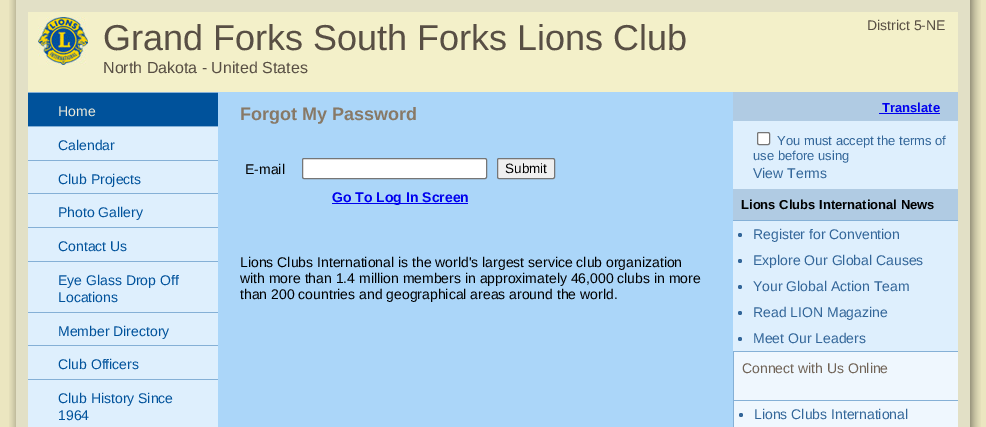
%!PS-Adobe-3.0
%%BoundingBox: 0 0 986 427
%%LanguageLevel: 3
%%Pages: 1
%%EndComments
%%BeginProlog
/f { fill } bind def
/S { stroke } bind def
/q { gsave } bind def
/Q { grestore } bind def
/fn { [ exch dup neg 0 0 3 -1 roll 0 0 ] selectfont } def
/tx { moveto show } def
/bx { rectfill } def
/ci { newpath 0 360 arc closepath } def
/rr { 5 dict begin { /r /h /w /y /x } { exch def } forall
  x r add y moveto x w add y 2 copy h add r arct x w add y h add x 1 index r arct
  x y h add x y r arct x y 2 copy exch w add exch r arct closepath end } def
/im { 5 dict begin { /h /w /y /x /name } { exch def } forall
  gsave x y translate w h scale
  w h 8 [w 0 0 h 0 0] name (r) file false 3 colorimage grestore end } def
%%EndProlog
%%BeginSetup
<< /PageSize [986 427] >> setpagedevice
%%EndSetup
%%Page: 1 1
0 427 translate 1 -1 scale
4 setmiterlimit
0.922 0.902 0.753 setrgbcolor
0 0 986 427 bx
(image0.raw) 9 0 7 427 im
0.886 0.878 0.776 setrgbcolor
16 0 954 427 bx
0.953 0.941 0.788 setrgbcolor
28 12 930 80 bx
(image1.raw) 38 17 50 48 im
/LiberationSans-Regular 36 fn
0.345 0.31 0.267 setrgbcolor
(Grand Forks South Forks Lions Club) 103 50 tx
/LiberationSans-Regular 16 fn
(North Dakota - United States) 103 73 tx
/LiberationSans-Regular 14 fn
(District 5-NE) 867 30 tx
0.671 0.839 0.976 setrgbcolor
218 92 515 335 bx
0.522 0.69 0.839 setrgbcolor
28 92 190 1 bx
28 126 190 1 bx
0 0.322 0.608 setrgbcolor
28 93 190 33 bx
0.929 0.918 0.855 setrgbcolor
(Home) 58 116 tx
0.522 0.69 0.839 setrgbcolor
28 160 190 1 bx
0.871 0.937 0.992 setrgbcolor
28 127 190 33 bx
0 0.322 0.608 setrgbcolor
(Calendar) 58 150 tx
0.522 0.69 0.839 setrgbcolor
28 193 190 1 bx
0.871 0.937 0.992 setrgbcolor
28 161 190 32 bx
0 0.322 0.608 setrgbcolor
(Club Projects) 58 184 tx
0.522 0.69 0.839 setrgbcolor
28 227 190 1 bx
0.871 0.937 0.992 setrgbcolor
28 194 190 33 bx
0 0.322 0.608 setrgbcolor
(Photo Gallery) 58 217 tx
0.522 0.69 0.839 setrgbcolor
28 261 190 1 bx
0.871 0.937 0.992 setrgbcolor
28 228 190 33 bx
0 0.322 0.608 setrgbcolor
(Contact Us) 58 251 tx
0.522 0.69 0.839 setrgbcolor
28 312 190 1 bx
0.871 0.937 0.992 setrgbcolor
28 262 190 50 bx
0 0.322 0.608 setrgbcolor
(Eye Glass Drop Off) 58 285 tx
(Locations) 58 302 tx
0.522 0.69 0.839 setrgbcolor
28 345 190 1 bx
0.871 0.937 0.992 setrgbcolor
28 313 190 32 bx
0 0.322 0.608 setrgbcolor
(Member Directory) 58 336 tx
0.522 0.69 0.839 setrgbcolor
28 379 190 1 bx
0.871 0.937 0.992 setrgbcolor
28 346 190 33 bx
0 0.322 0.608 setrgbcolor
(Club Officers) 58 369 tx
0.871 0.937 0.992 setrgbcolor
28 380 190 47 bx
0 0.322 0.608 setrgbcolor
(Club History Since) 58 403 tx
(1964) 58 420 tx
/LiberationSans-Bold 18 fn
0.533 0.475 0.4 setrgbcolor
(Forgot My Password) 240 120 tx
/LiberationSans-Regular 14 fn
0 setgray
(E-mail) 245 174 tx
1 setgray
302.5 158.5 184 20 1.5 rr q f Q
0.463 setgray
S
0.937 setgray
497.5 158.5 57 20 1.5 rr q f Q
0.463 setgray
S
/LiberationSans-Regular 13.5 fn
0 setgray
(Submit) 505 173 tx
0 0 0.933 setrgbcolor
332 203 136 1 bx
/LiberationSans-Bold 14 fn
(Go To Log In Screen) 332 202 tx
/LiberationSans-Regular 14 fn
0 setgray
(Lions Clubs International is the world's largest service club organization) 240 267 tx
(with more than 1.4 million members in approximately 46,000 clubs in more) 240 283 tx
(than 200 countries and geographical areas around the world.) 240 299 tx
0.871 0.937 0.992 setrgbcolor
733 121 225 68 bx
0.69 0.796 0.89 setrgbcolor
733 92 225 29 bx
/LiberationSans-Bold 13 fn
0 0 0.933 setrgbcolor
(Translate) 882 112 tx
879 113 61 1 bx
1 setgray
757.5 132.5 12 12 1.5 rr q f Q
0.463 setgray
S
/LiberationSans-Regular 13 fn
0.2 0.4 0.6 setrgbcolor
(You must accept the terms of) 777 145 tx
(use before using) 753 160 tx
/LiberationSans-Regular 14 fn
(View Terms) 753 178 tx
0.871 0.937 0.992 setrgbcolor
733 221 225 130 bx
0.69 0.796 0.89 setrgbcolor
733 189 225 31 bx
/LiberationSans-Bold 13 fn
0 setgray
(Lions Clubs International News) 741 209 tx
0.522 0.69 0.839 setrgbcolor
733 220 225 1 bx
0.2 0.4 0.6 setrgbcolor
740 235 2 ci f
/LiberationSans-Regular 14 fn
(Register for Convention) 753 239 tx
740 261 2 ci f
(Explore Our Global Causes) 753 265 tx
740 287 2 ci f
(Your Global Action Team) 753 291 tx
740 313 2 ci f
(Read LION Magazine) 753 317 tx
740 339 2 ci f
(Meet Our Leaders) 753 343 tx
0.522 0.69 0.839 setrgbcolor
733 351 225 1 bx
0.937 0.969 0.996 setrgbcolor
734 352 224 48 bx
0.522 0.69 0.839 setrgbcolor
733 352 1 48 bx
0.439 0.388 0.337 setrgbcolor
(Connect with Us Online) 742 373 tx
0.522 0.69 0.839 setrgbcolor
733 400 225 1 bx
0.937 0.969 0.996 setrgbcolor
734 401 224 26 bx
0.522 0.69 0.839 setrgbcolor
733 401 1 26 bx
0.2 0.4 0.6 setrgbcolor
741 415 2 ci f
(Lions Clubs International) 754 419 tx
(image2.raw) 970 0 11 427 im
showpage
%%EOF
